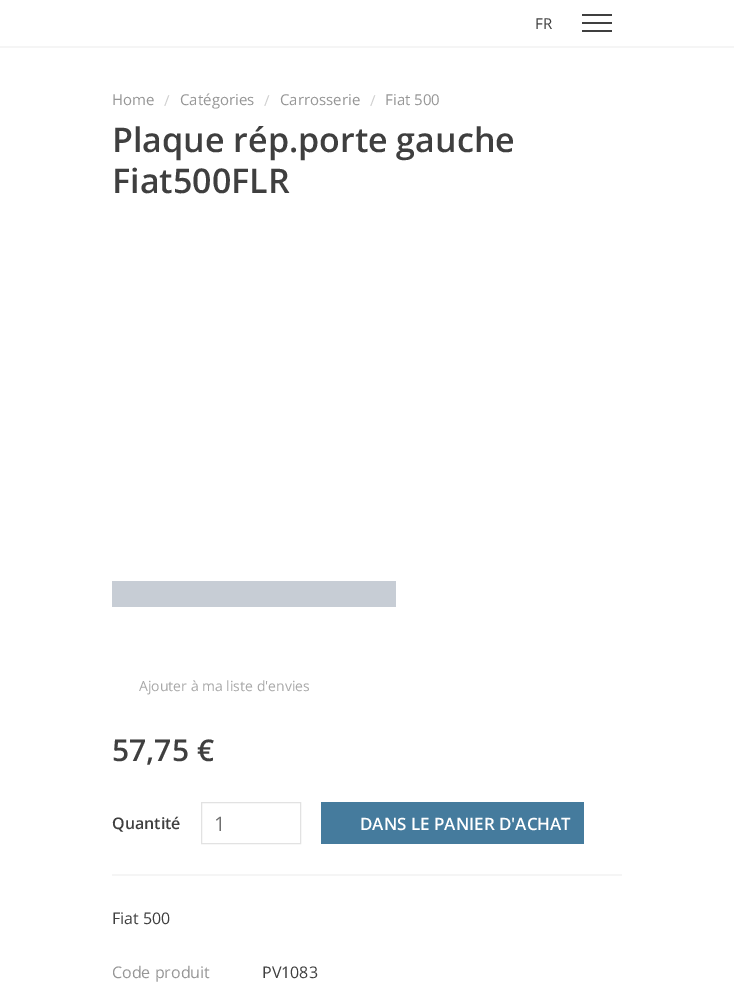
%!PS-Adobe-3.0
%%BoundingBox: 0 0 734 1008
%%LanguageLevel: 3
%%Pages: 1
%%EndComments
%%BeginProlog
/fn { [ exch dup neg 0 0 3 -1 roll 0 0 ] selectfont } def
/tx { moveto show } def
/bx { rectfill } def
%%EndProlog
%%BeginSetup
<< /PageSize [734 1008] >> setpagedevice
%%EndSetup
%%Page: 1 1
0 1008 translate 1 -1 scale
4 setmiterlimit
1 setgray
0 0 734 1008 bx
0.961 setgray
0 46 734 2 bx
/OpenSans-Regular 15 fn
0.247 setgray
(FR) 535 29 tx
582 22 30 2 bx
582 14 30 2 bx
582 30 30 2 bx
0.588 setgray
(Home) 112 105 tx
0.812 setgray
(/) 164 106 tx
0.588 setgray
(Catégories) 180 105 tx
0.812 setgray
(/) 264 106 tx
0.588 setgray
(Carrosserie) 280 105 tx
0.812 setgray
(/) 370 106 tx
0.588 setgray
(Fiat 500) 385 105 tx
/OpenSans-SemiBold 34 fn
0.247 setgray
(Plaque rép.porte gauche) 112 152 tx
(Fiat500FLR) 112 193 tx
0.78 0.804 0.835 setrgbcolor
112 581 284 26 bx
/OpenSans-Regular 14 fn
0.659 setgray
(Ajouter à ma liste d'envies) 139 691 tx
/OpenSans-SemiBold 30 fn
0.247 setgray
(57,75 €) 112 761 tx
/OpenSans-SemiBold 16 fn
(Quantité) 112 829 tx
0.886 setgray
201.5 802.5 99 41 rectstroke
/OpenSans-Regular 20 fn
0.435 setgray
(1) 214 831 tx
0.271 0.482 0.616 setrgbcolor
321 802 263 42 bx
/OpenSans-SemiBold 17 fn
1 setgray
(DANS LE PANIER D'ACHAT) 360 830 tx
0.961 setgray
112 874 510 2 bx
/OpenSans-Regular 16 fn
0.247 setgray
(Fiat 500) 112 924 tx
0.588 setgray
(Code produit) 112 978 tx
0.247 setgray
(PV1083) 262 978 tx
showpage
%%EOF
